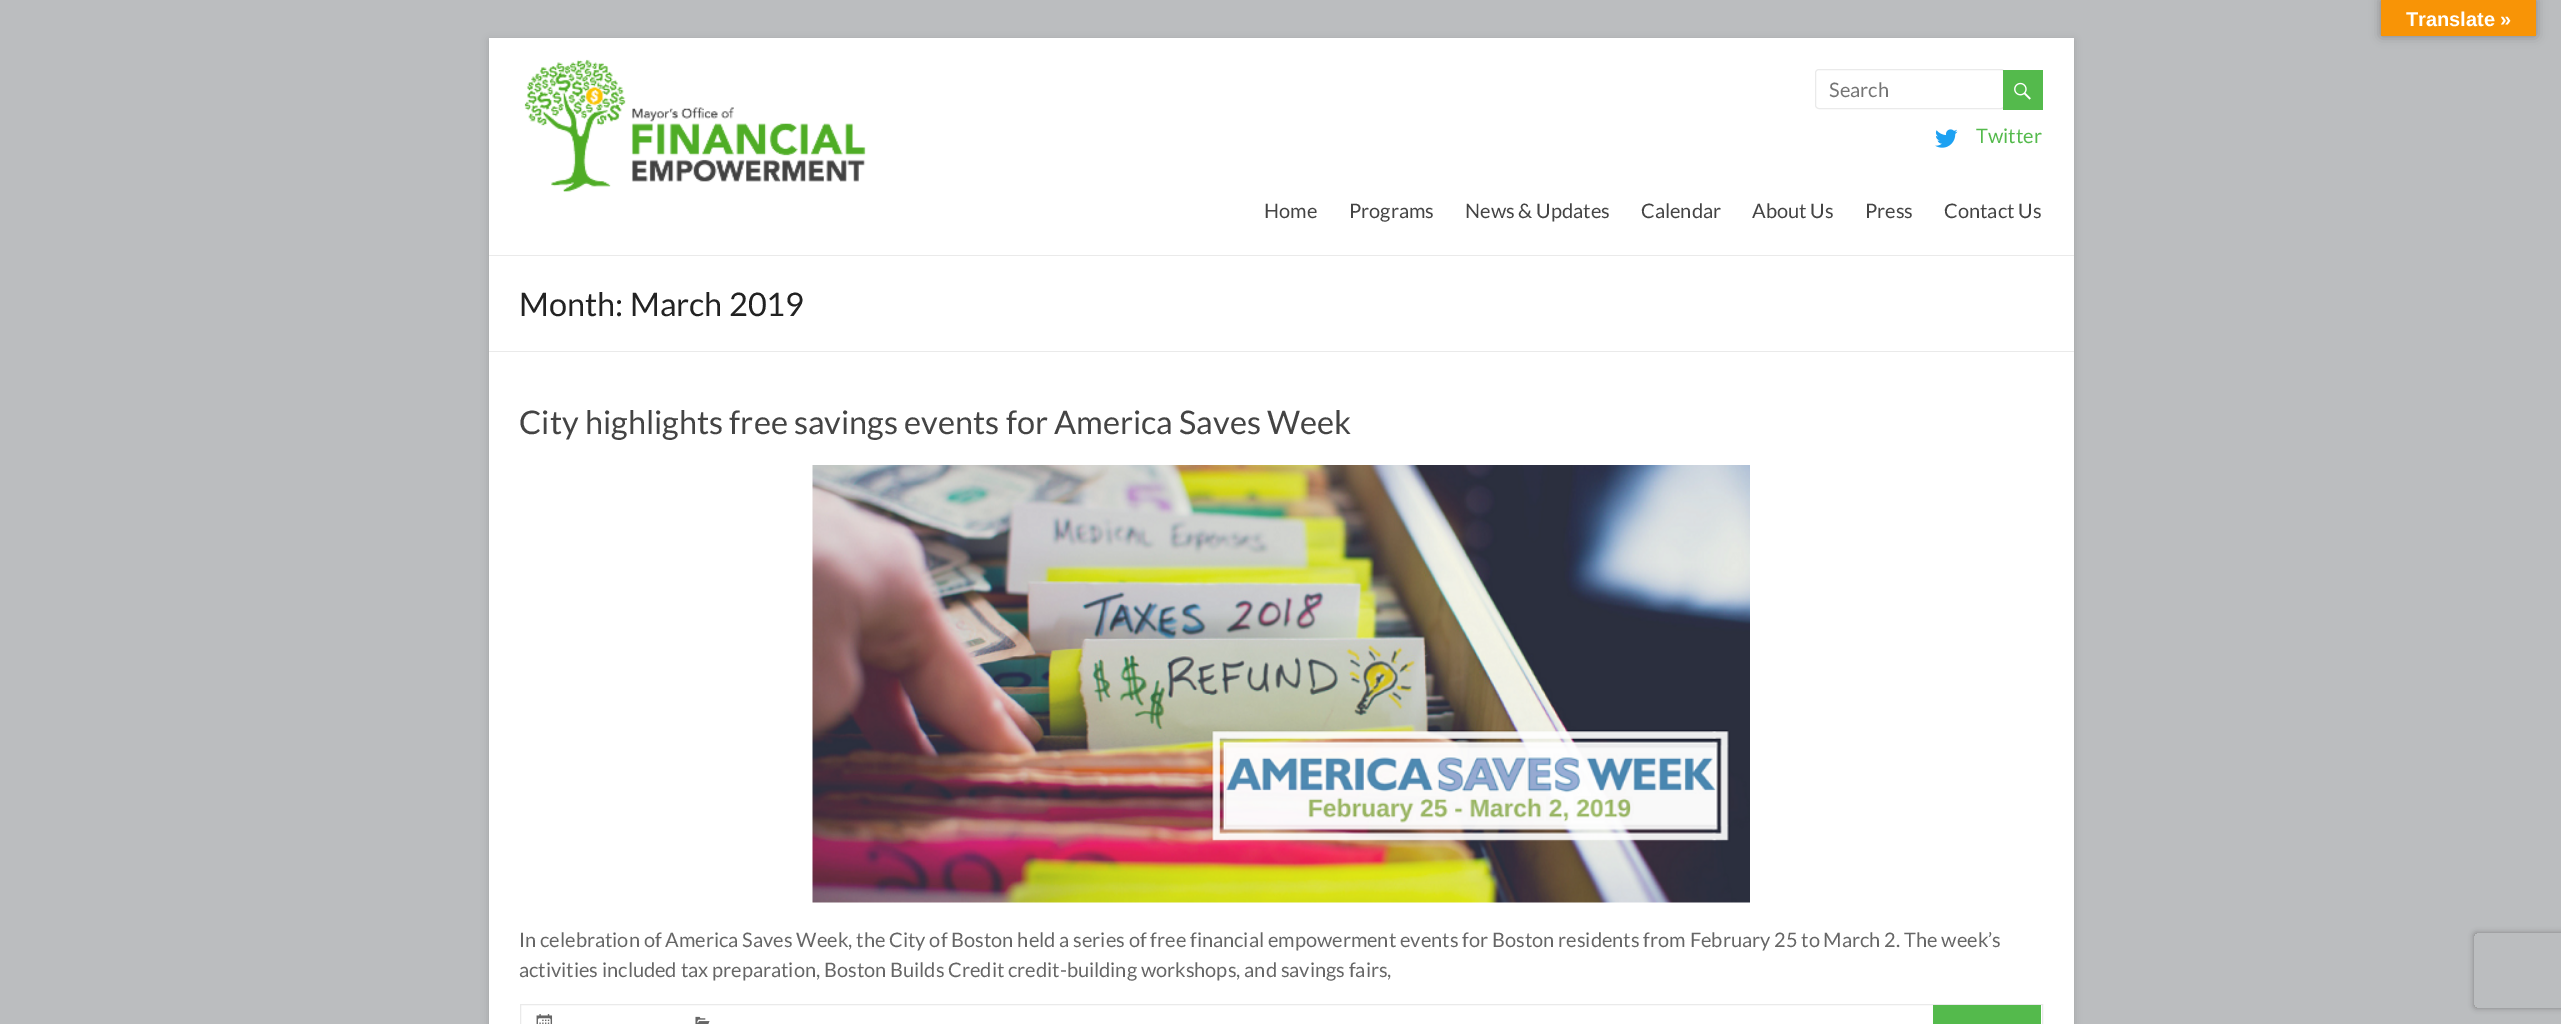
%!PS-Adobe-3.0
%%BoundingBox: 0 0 2561 1024
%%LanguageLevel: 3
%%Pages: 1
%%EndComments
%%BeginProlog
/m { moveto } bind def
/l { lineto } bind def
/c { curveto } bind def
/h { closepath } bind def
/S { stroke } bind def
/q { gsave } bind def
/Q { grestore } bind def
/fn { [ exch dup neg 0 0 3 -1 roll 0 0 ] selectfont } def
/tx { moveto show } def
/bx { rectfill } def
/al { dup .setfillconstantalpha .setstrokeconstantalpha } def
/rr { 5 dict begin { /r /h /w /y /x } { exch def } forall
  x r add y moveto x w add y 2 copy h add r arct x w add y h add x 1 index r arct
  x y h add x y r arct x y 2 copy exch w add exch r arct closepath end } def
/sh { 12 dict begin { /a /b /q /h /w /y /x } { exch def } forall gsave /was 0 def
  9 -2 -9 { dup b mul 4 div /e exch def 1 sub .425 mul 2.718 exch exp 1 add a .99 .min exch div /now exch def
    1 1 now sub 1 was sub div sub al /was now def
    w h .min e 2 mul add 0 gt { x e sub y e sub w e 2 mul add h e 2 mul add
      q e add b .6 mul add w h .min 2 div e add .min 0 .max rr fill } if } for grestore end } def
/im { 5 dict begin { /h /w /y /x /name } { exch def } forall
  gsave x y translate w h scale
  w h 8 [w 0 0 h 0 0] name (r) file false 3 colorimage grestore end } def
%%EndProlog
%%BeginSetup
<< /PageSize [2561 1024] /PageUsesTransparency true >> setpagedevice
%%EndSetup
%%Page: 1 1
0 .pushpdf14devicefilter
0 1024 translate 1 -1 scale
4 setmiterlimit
0.733 0.741 0.749 setrgbcolor
0 0 2561 1024 bx
0 setgray
2381 0 155 36 0 5.5 0.3 sh
0.973 0.58 0.024 setrgbcolor
2381 0 155 36 bx
/LiberationSans-Bold 20 fn
1 setgray
(Translate ») 2406 26 tx
0.392 setgray
489 40 1585 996 0 4 0.3 sh
1 setgray
489 38 1585 986 bx
0.918 setgray
489 255 1585 1 bx
(image0.raw) 524 59 342 133 im
1815.5 69.5 189 39 3.5 rr S
/Lato-Regular 20 fn
0.459 setgray
(Search) 1829 97 tx
0.329 0.729 0.298 setrgbcolor
2003 70 40 40 bx
(image1.raw) 2014 82 17 18 im
(image2.raw) 1935 129 23 19 im
(Twitter) 1976 143 tx
0.267 setgray
(Home) 1264 218 tx
(Programs) 1349 218 tx
(News & Updates) 1465 218 tx
(Calendar) 1641 218 tx
(About Us) 1752 218 tx
(Press) 1865 218 tx
(Contact Us) 1944 218 tx
0.918 setgray
489 351 1585 1 bx
/Lato-Regular 32.5 fn
0.133 setgray
(Month: March 2019) 519 316 tx
0.267 setgray
(City highlights free savings events for America Saves Week) 519 434 tx
(image3.raw) 812 465 938 438 im
/Lato-Regular 20 fn
0.4 setgray
(In celebration of America Saves Week, the City of Boston held a series of free financial empowerment events for Boston residents from February 25 to March 2. The week’s) 519 947 tx
(activities included tax preparation, Boston Builds Credit credit-building workshops, and savings fairs,) 519 977 tx
0.918 setgray
520.5 1004.5 1522 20 rectstroke
(image4.raw) 536 1014 17 10 im
(image5.raw) 695 1016 15 8 im
0.329 0.729 0.298 setrgbcolor
1933 1005 108 19 bx
q
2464 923 m 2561 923 l 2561 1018 l 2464 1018 l h 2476.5 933 m 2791.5 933 l 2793 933 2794 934 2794 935.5 c 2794 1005.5 l 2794 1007 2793 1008 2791.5 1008 c 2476.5 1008 l 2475 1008 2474 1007 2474 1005.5 c 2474 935.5 l 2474 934 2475 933 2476.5 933 c h eoclip newpath
0.502 setgray
2474 933 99 75 2.5 3 1 sh
Q
.poppdf14devicefilter showpage
%%EOF
